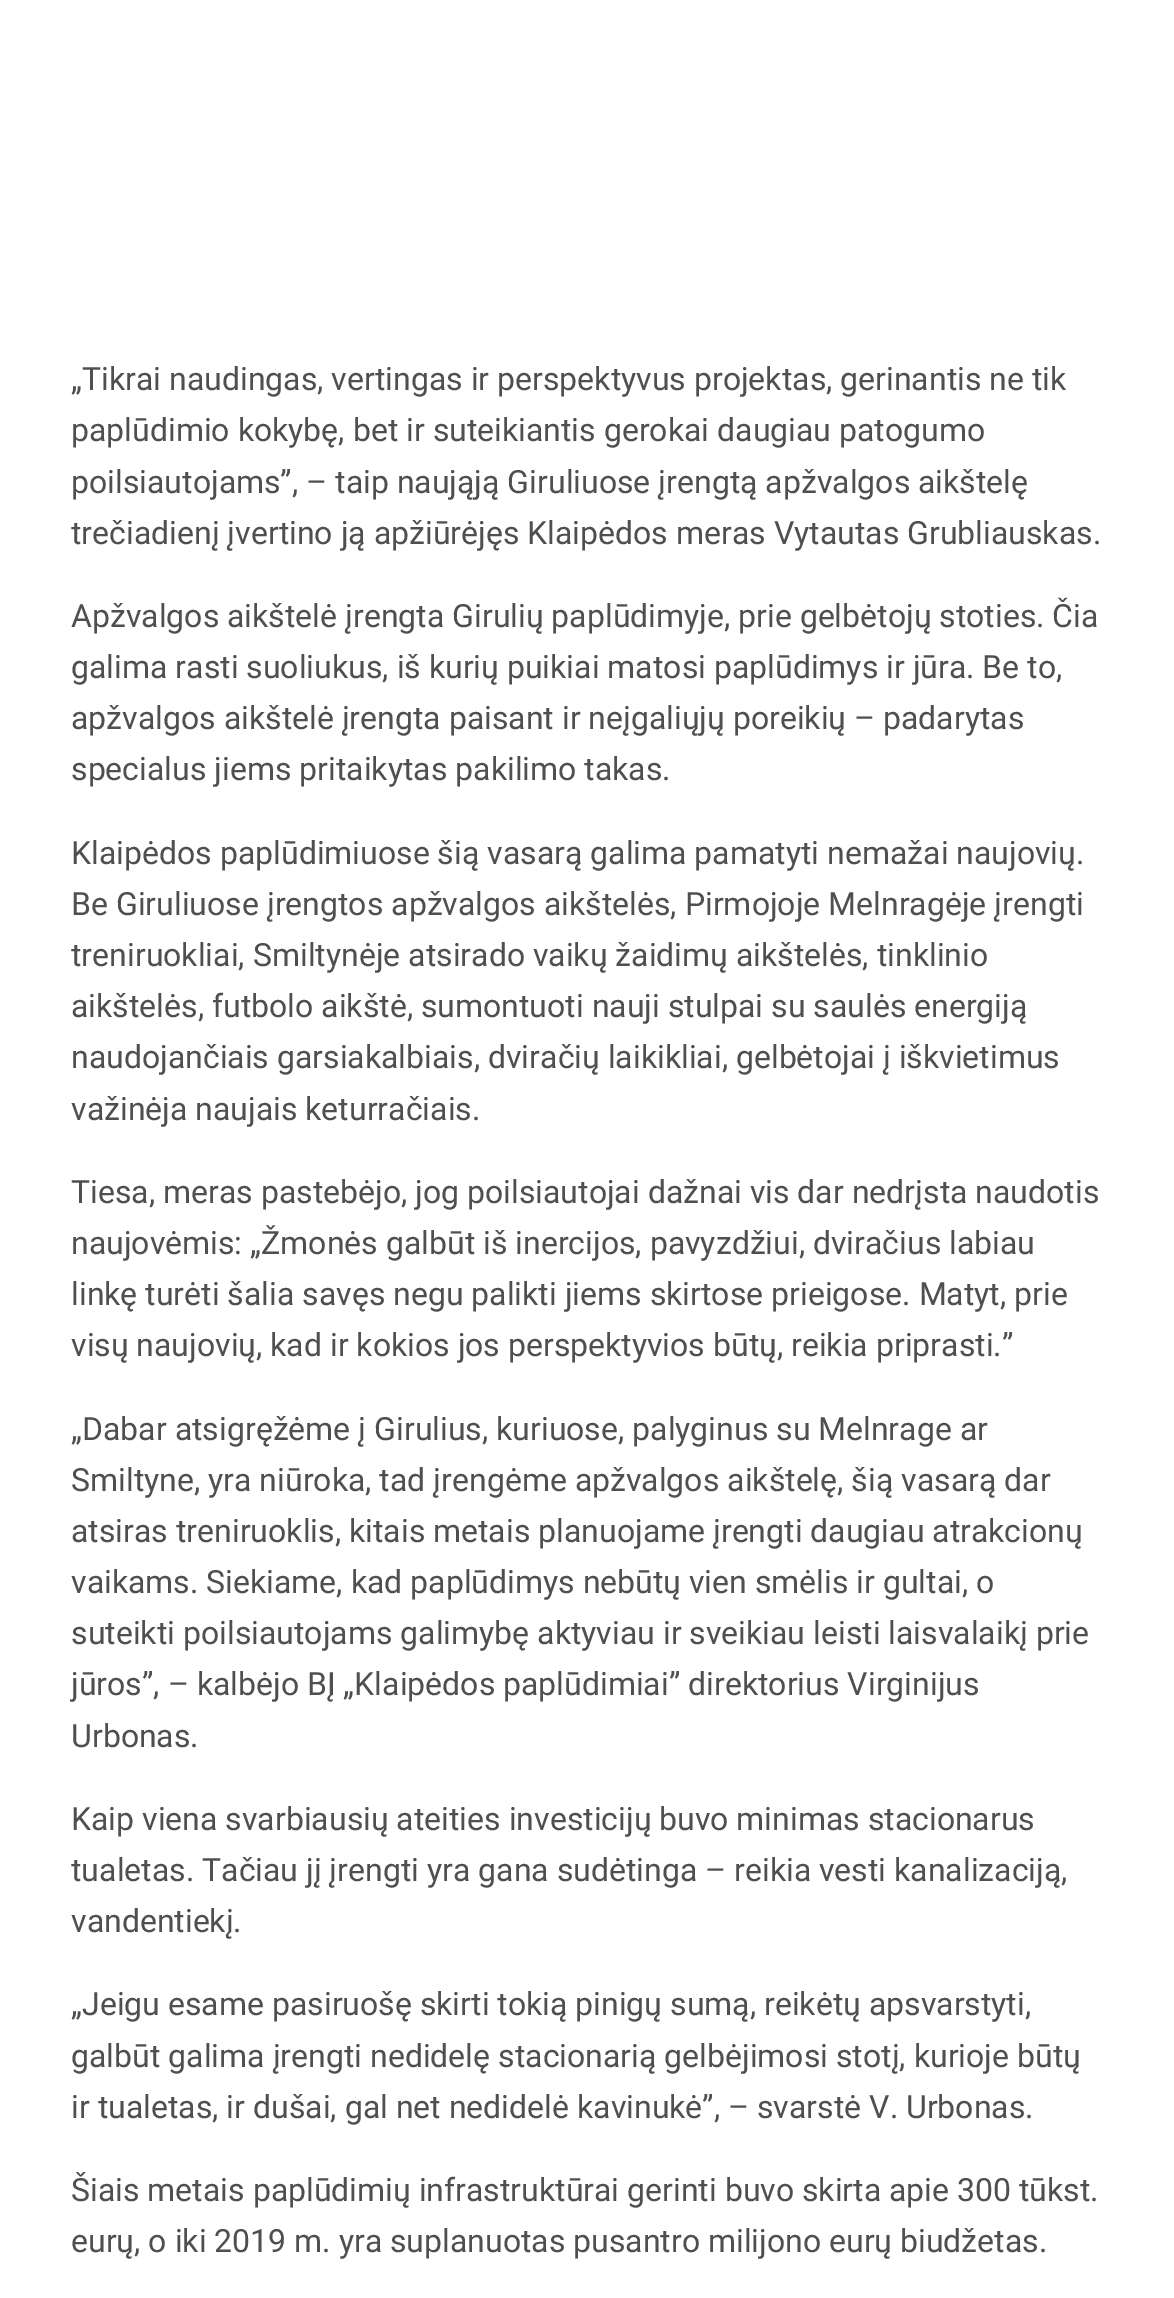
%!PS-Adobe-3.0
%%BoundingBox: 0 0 1174 2298
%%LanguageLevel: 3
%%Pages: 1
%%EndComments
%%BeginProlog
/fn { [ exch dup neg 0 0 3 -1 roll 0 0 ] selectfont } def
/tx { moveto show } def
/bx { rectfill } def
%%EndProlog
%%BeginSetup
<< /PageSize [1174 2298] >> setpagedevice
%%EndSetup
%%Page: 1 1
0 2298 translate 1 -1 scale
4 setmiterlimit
1 setgray
0 0 1174 2298 bx
/Roboto-Regular 32 fn
0.31 setgray
(„Tikrai naudingas, vertingas ir perspektyvus projektas, gerinantis ne tik) 71 390 tx
(paplūdimio kokybę, bet ir suteikiantis gerokai daugiau patogumo) 71 441 tx
(poilsiautojams”, – taip naująją Giruliuose įrengtą apžvalgos aikštelę) 71 493 tx
(trečiadienį įvertino ją apžiūrėjęs Klaipėdos meras Vytautas Grubliauskas.) 71 544 tx
(Apžvalgos aikštelė įrengta Girulių paplūdimyje, prie gelbėtojų stoties. Čia) 71 627 tx
(galima rasti suoliukus, iš kurių puikiai matosi paplūdimys ir jūra. Be to,) 71 678 tx
(apžvalgos aikštelė įrengta paisant ir neįgaliųjų poreikių – padarytas) 71 729 tx
(specialus jiems pritaikytas pakilimo takas.) 71 780 tx
(Klaipėdos paplūdimiuose šią vasarą galima pamatyti nemažai naujovių.) 71 864 tx
(Be Giruliuose įrengtos apžvalgos aikštelės, Pirmojoje Melnragėje įrengti) 71 915 tx
(treniruokliai, Smiltynėje atsirado vaikų žaidimų aikštelės, tinklinio) 71 966 tx
(aikštelės, futbolo aikštė, sumontuoti nauji stulpai su saulės energiją) 71 1017 tx
(naudojančiais garsiakalbiais, dviračių laikikliai, gelbėtojai į iškvietimus) 71 1068 tx
(važinėja naujais keturračiais.) 71 1120 tx
(Tiesa, meras pastebėjo, jog poilsiautojai dažnai vis dar nedrįsta naudotis) 71 1203 tx
(naujovėmis: „Žmonės galbūt iš inercijos, pavyzdžiui, dviračius labiau) 71 1254 tx
(linkę turėti šalia savęs negu palikti jiems skirtose prieigose. Matyt, prie) 71 1305 tx
(visų naujovių, kad ir kokios jos perspektyvios būtų, reikia priprasti.”) 71 1356 tx
(„Dabar atsigręžėme į Girulius, kuriuose, palyginus su Melnrage ar) 71 1440 tx
(Smiltyne, yra niūroka, tad įrengėme apžvalgos aikštelę, šią vasarą dar) 71 1491 tx
(atsiras treniruoklis, kitais metais planuojame įrengti daugiau atrakcionų) 71 1542 tx
(vaikams. Siekiame, kad paplūdimys nebūtų vien smėlis ir gultai, o) 71 1593 tx
(suteikti poilsiautojams galimybę aktyviau ir sveikiau leisti laisvalaikį prie) 71 1644 tx
(jūros”, – kalbėjo BĮ „Klaipėdos paplūdimiai” direktorius Virginijus) 71 1695 tx
(Urbonas.) 71 1747 tx
(Kaip viena svarbiausių ateities investicijų buvo minimas stacionarus) 71 1830 tx
(tualetas. Tačiau jį įrengti yra gana sudėtinga – reikia vesti kanalizaciją,) 71 1881 tx
(vandentiekį.) 71 1932 tx
(„Jeigu esame pasiruošę skirti tokią pinigų sumą, reikėtų apsvarstyti,) 71 2015 tx
(galbūt galima įrengti nedidelę stacionarią gelbėjimosi stotį, kurioje būtų) 71 2067 tx
(ir tualetas, ir dušai, gal net nedidelė kavinukė”, – svarstė V. Urbonas.) 71 2118 tx
(Šiais metais paplūdimių infrastruktūrai gerinti buvo skirta apie 300 tūkst.) 71 2201 tx
(eurų, o iki 2019 m. yra suplanuotas pusantro milijono eurų biudžetas.) 71 2252 tx
showpage
%%EOF
